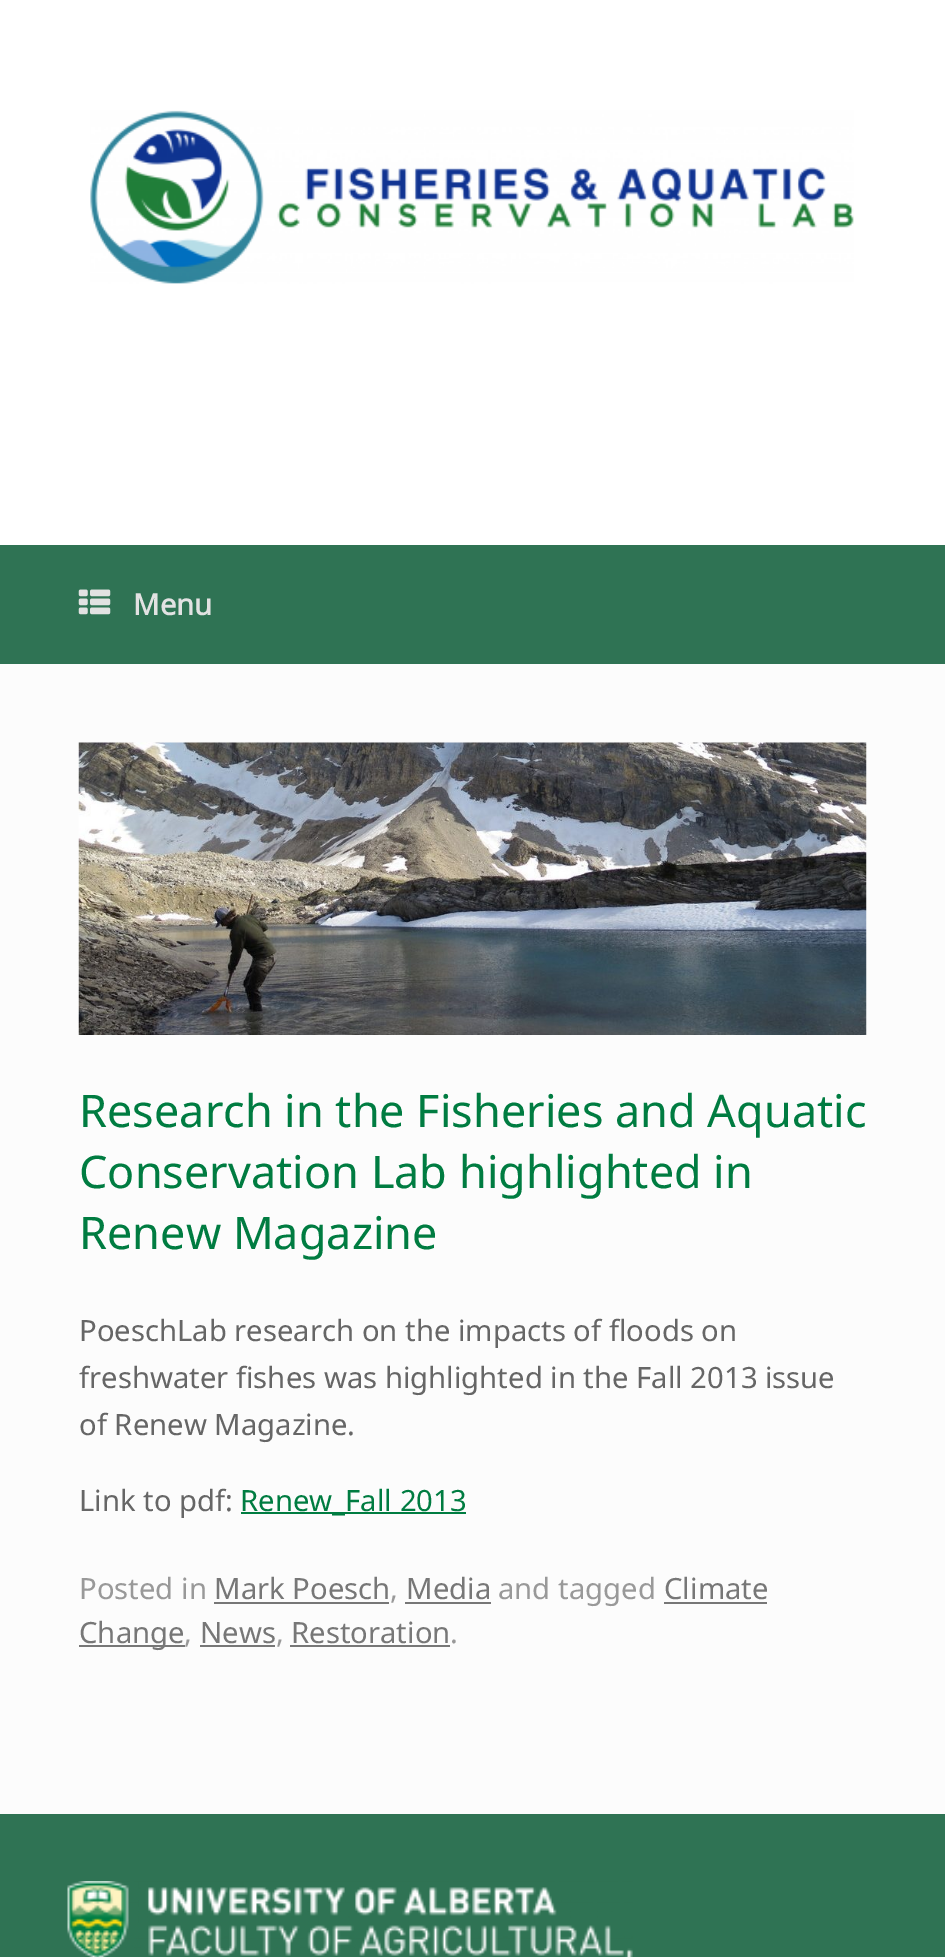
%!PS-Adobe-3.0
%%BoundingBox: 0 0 945 1957
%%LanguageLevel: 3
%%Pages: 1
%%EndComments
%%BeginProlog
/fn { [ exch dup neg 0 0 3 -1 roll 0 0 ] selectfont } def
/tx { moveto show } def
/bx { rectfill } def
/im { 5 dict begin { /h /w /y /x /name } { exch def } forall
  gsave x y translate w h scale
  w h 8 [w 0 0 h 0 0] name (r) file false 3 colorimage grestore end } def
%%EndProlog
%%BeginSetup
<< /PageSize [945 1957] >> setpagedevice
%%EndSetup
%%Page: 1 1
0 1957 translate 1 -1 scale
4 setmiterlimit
0.184 0.451 0.329 setrgbcolor
0 0 945 1957 bx
1 setgray
0 0 945 545 bx
(image0.raw) 90 110 764 174 im
(image1.raw) 78 589 33 26 im
/NotoSans-Bold 29.25 fn
0.886 setgray
(Menu) 133 615 tx
0.988 setgray
0 664 945 1150 bx
(image2.raw) 78 742 789 293 im
/NotoSans-Regular 45 fn
0 0.486 0.255 setrgbcolor
(Research in the Fisheries and Aquatic) 79 1127 tx
(Conservation Lab highlighted in) 79 1188 tx
(Renew Magazine) 79 1249 tx
/NotoSans-Regular 29.25 fn
0.4 setgray
(PoeschLab research on the impacts of floods on) 79 1341 tx
(freshwater fishes was highlighted in the Fall 2013 issue) 79 1388 tx
(of Renew Magazine.) 79 1435 tx
(Link to pdf:) 79 1511 tx
0 0.486 0.255 setrgbcolor
241 1512 225 2 bx
(Renew_Fall 2013) 240 1511 tx
0.6 setgray
(Posted in) 79 1599 tx
0.467 setgray
(Mark Poesch) 214 1599 tx
214 1602 175 2 bx
0.6 setgray
(,) 390 1599 tx
0.467 setgray
(Media) 406 1599 tx
405 1602 86 2 bx
0.6 setgray
(and tagged) 498 1599 tx
0.467 setgray
(Climate) 664 1599 tx
664 1602 103 2 bx
79 1645 106 2 bx
(Change) 79 1643 tx
0.6 setgray
(,) 184 1643 tx
0.467 setgray
(News) 200 1643 tx
200 1645 75 2 bx
0.6 setgray
(,) 276 1643 tx
0.467 setgray
(Restoration) 291 1643 tx
290 1645 160 2 bx
0.6 setgray
(.) 450 1643 tx
(image3.raw) 67 1881 566 76 im
showpage
%%EOF
